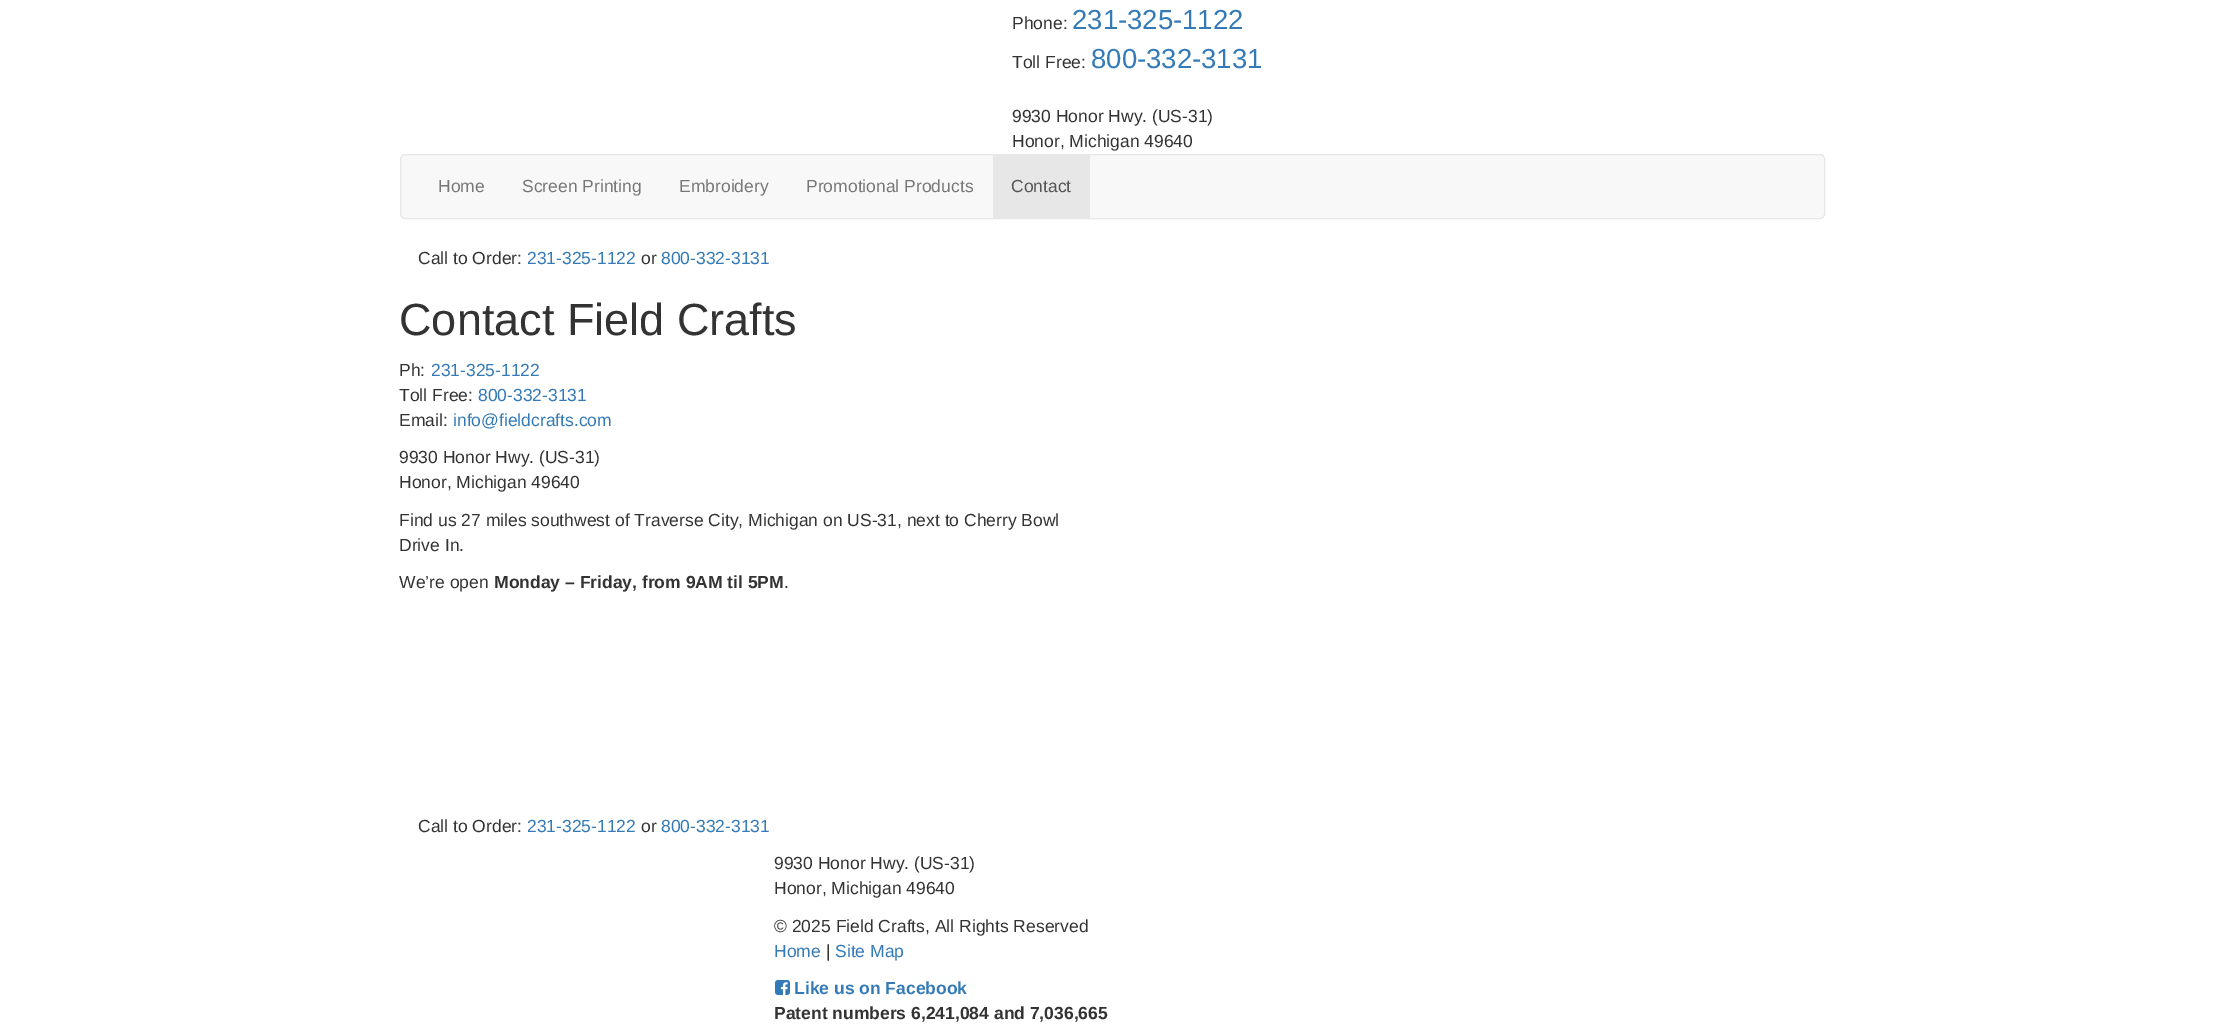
%!PS-Adobe-3.0
%%BoundingBox: 0 0 2223 1033
%%LanguageLevel: 3
%%Pages: 1
%%EndComments
%%BeginProlog
/f { fill } bind def
/S { stroke } bind def
/q { gsave } bind def
/Q { grestore } bind def
/fn { [ exch dup neg 0 0 3 -1 roll 0 0 ] selectfont } def
/tx { moveto show } def
/bx { rectfill } def
/rr { 5 dict begin { /r /h /w /y /x } { exch def } forall
  x r add y moveto x w add y 2 copy h add r arct x w add y h add x 1 index r arct
  x y h add x y r arct x y 2 copy exch w add exch r arct closepath end } def
/im { 5 dict begin { /h /w /y /x /name } { exch def } forall
  gsave x y translate w h scale
  w h 8 [w 0 0 h 0 0] name (r) file false 3 colorimage grestore end } def
%%EndProlog
%%BeginSetup
<< /PageSize [2223 1033] >> setpagedevice
%%EndSetup
%%Page: 1 1
0 1033 translate 1 -1 scale
4 setmiterlimit
1 setgray
0 0 2223 1033 bx
/LiberationSans-Regular 17.5 fn
0.2 setgray
(Phone:) 1012 29 tx
/LiberationSans-Regular 27.5 fn
0.2 0.478 0.718 setrgbcolor
(231-325-1122) 1072 29 tx
/LiberationSans-Regular 17.5 fn
0.2 setgray
(Toll Free:) 1012 68 tx
/LiberationSans-Regular 27.5 fn
0.2 0.478 0.718 setrgbcolor
(800-332-3131) 1091 68 tx
/LiberationSans-Regular 17.5 fn
0.2 setgray
(9930 Honor Hwy. \(US-31\)) 1012 122 tx
(Honor, Michigan 49640) 1012 147 tx
0.973 setgray
400.5 154.5 1424 64 4.5 rr q f Q
0.906 setgray
S
0.467 setgray
(Home) 438 192 tx
(Screen Printing) 522 192 tx
(Embroidery) 679 192 tx
(Promotional Products) 806 192 tx
0.906 setgray
993 155 97 63 bx
0.333 setgray
(Contact) 1011 192 tx
0.2 setgray
(Call to Order:) 418 264 tx
0.2 0.478 0.718 setrgbcolor
(231-325-1122) 527 264 tx
0.2 setgray
(or) 641 264 tx
0.2 0.478 0.718 setrgbcolor
(800-332-3131) 661 264 tx
/LiberationSans-Regular 45 fn
0.2 setgray
(Contact Field Crafts) 399 335 tx
/LiberationSans-Regular 17.5 fn
(Ph:) 399 376 tx
0.2 0.478 0.718 setrgbcolor
(231-325-1122) 431 376 tx
0.2 setgray
(Toll Free:) 399 401 tx
0.2 0.478 0.718 setrgbcolor
(800-332-3131) 478 401 tx
0.2 setgray
(Email:) 399 426 tx
0.2 0.478 0.718 setrgbcolor
(info@fieldcrafts.com) 453 426 tx
0.2 setgray
(9930 Honor Hwy. \(US-31\)) 399 463 tx
(Honor, Michigan 49640) 399 488 tx
(Find us 27 miles southwest of Traverse City, Michigan on US-31, next to Cherry Bowl) 399 526 tx
(Drive In.) 399 551 tx
(We’re open) 399 588 tx
/LiberationSans-Bold 17.5 fn
(Monday – Friday, from 9AM til 5PM) 494 588 tx
/LiberationSans-Regular 17.5 fn
(.) 784 588 tx
(Call to Order:) 418 832 tx
0.2 0.478 0.718 setrgbcolor
(231-325-1122) 527 832 tx
0.2 setgray
(or) 641 832 tx
0.2 0.478 0.718 setrgbcolor
(800-332-3131) 661 832 tx
0.2 setgray
(9930 Honor Hwy. \(US-31\)) 774 869 tx
(Honor, Michigan 49640) 774 894 tx
(© 2025 Field Crafts, All Rights Reserved) 774 932 tx
0.2 0.478 0.718 setrgbcolor
(Home) 774 957 tx
0.2 setgray
(|) 826 957 tx
0.2 0.478 0.718 setrgbcolor
(Site Map) 835 957 tx
(image0.raw) 775 980 15 15 im
/LiberationSans-Bold 17.5 fn
(Like us on Facebook) 794 994 tx
0.2 setgray
(Patent numbers 6,241,084 and 7,036,665) 774 1019 tx
showpage
%%EOF
